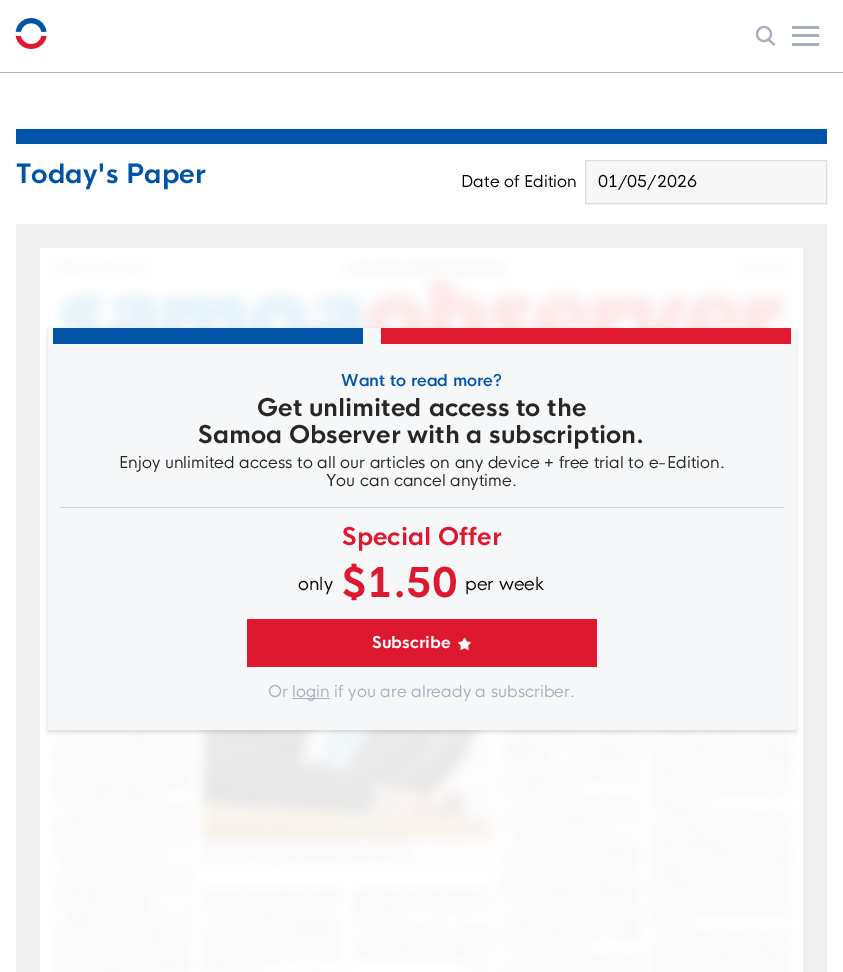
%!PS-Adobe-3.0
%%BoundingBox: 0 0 843 972
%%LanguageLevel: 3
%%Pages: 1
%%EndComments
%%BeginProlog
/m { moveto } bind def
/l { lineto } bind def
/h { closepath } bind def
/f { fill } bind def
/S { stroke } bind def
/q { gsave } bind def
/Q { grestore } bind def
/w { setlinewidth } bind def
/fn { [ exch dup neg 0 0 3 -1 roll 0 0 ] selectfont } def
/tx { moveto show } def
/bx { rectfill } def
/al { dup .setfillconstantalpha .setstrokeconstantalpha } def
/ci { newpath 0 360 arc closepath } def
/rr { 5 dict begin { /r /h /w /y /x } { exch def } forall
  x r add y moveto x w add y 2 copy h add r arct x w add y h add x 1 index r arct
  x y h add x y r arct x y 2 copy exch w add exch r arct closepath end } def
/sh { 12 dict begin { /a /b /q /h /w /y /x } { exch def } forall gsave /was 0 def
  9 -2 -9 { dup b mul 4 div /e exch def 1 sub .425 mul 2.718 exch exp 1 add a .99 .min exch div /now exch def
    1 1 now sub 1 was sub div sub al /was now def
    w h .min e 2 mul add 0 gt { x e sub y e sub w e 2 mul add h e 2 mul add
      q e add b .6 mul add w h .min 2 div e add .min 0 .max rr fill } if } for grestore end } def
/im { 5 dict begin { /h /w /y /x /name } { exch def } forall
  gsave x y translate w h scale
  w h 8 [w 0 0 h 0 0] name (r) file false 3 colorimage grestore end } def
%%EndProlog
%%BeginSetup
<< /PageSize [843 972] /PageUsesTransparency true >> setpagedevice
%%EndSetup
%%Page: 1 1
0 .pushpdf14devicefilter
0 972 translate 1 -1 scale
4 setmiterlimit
1 setgray
0 0 843 972 bx
0.678 setgray
0 72 843 1 bx
(image0.raw) 15 18 32 31 im
0.655 0.682 0.745 setrgbcolor
2.1 w
764 34 7 ci S
767.5 38.5 m 774.5 45 l S
792 26 27 3 bx
792 34 27 3 bx
792 43 27 3 bx
0 0.329 0.651 setrgbcolor
16 129 811 15 bx
/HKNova-Bold 26 fn
(Today's Paper) 16 183 tx
/HKNova-Regular 16 fn
0 setgray
(Date of Edition) 461 187 tx
0.969 setgray
585.5 160.5 m 826.5 160.5 l 826.5 203.5 l 585.5 203.5 l h q f Q
0.859 setgray
1 w
S
0 setgray
(01/05/2026) 598 187 tx
0.941 setgray
16 224 811 748 bx
(image1.raw) 40 248 763 724 im
0 setgray
48 330 748 402 0 2 0.15 sh
0.965 0.969 0.973 setrgbcolor
48 328 748 402 bx
0 0.329 0.651 setrgbcolor
53 328 310 16 bx
0.875 0.098 0.188 setrgbcolor
381 328 410 16 bx
/HKNova-SemiBold 16 fn
0 0.329 0.651 setrgbcolor
(Want to read more?) 341 386 tx
/HKNova-Bold 24 fn
0.153 setgray
(Get unlimited access to the) 257 416 tx
(Samoa Observer with a subscription.) 198 443 tx
/HKNova-Regular 16 fn
(Enjoy unlimited access to all our articles on any device + free trial to e-Edition.) 119 468 tx
(You can cancel anytime.) 326 486 tx
0.824 setgray
60 507 724 1 bx
/HKNova-Bold 24 fn
0.871 0.094 0.184 setrgbcolor
(Special Offer) 342 545 tx
/HKNova-Regular 17.5 fn
0 setgray
(only) 298 590 tx
/HKNova-Bold 40 fn
0.871 0.094 0.184 setrgbcolor
($1.50) 341 597 tx
/HKNova-Regular 17.5 fn
0 setgray
(per week) 465 590 tx
0.871 0.094 0.184 setrgbcolor
247 619 350 48 bx
/HKNova-Bold 16 fn
1 setgray
(Subscribe) 372 648 tx
(image2.raw) 458 638 13 12 im
/HKNova-Regular 16 fn
0.655 0.682 0.745 setrgbcolor
(Or) 268 697 tx
292 698 38 1 bx
(login if you are already a subscriber.) 292 697 tx
.poppdf14devicefilter showpage
%%EOF
